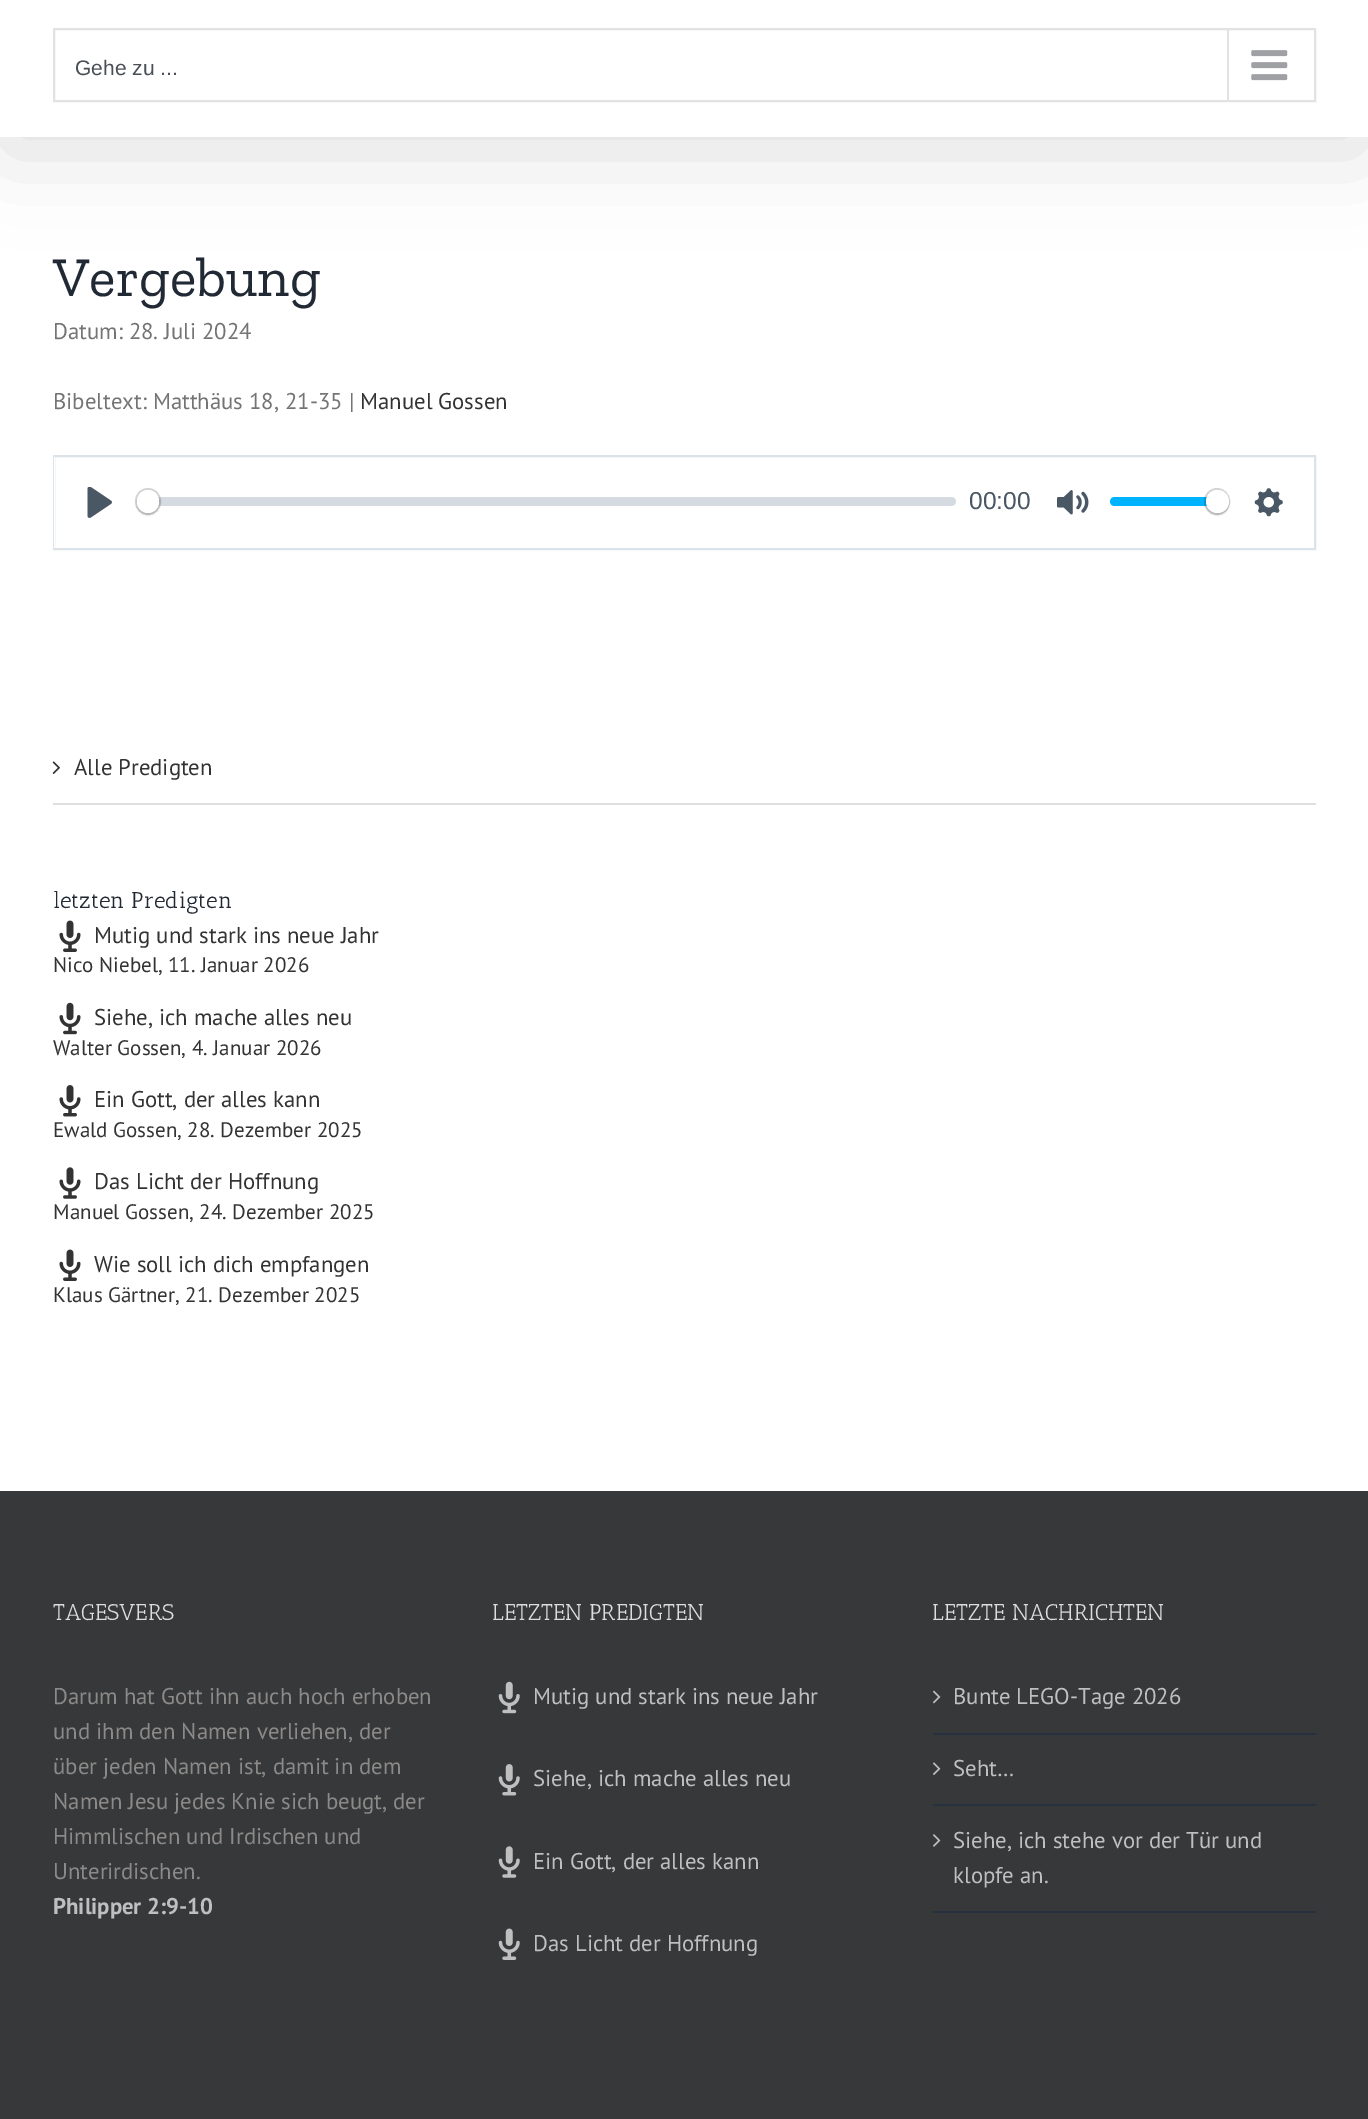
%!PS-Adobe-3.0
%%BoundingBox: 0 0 1368 2119
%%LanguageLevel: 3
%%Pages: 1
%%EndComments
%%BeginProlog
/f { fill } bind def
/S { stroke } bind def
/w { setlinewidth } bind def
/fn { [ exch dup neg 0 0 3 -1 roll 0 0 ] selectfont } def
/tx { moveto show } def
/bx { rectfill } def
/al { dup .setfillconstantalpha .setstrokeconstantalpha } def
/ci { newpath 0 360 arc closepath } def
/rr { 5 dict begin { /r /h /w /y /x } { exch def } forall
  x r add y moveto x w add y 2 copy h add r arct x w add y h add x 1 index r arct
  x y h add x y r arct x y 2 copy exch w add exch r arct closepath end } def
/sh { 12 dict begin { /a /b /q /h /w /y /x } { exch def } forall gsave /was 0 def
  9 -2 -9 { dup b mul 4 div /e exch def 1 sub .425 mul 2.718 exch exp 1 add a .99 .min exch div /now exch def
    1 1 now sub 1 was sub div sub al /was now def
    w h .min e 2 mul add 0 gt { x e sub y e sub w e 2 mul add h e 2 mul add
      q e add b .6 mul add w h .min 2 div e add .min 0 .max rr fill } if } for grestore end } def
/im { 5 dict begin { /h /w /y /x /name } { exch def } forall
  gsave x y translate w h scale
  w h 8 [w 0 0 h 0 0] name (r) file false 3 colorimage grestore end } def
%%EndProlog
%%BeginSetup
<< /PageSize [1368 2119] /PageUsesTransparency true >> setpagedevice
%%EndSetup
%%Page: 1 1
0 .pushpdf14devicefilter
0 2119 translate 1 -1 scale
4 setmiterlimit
1 setgray
0 0 1368 2119 bx
0 setgray
4 -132 1361 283 0 44 0.14 sh
1 setgray
0 0 1368 137 bx
0.886 setgray
2 w
54 29 1261 72 rectstroke
/LiberationSans-Regular 21 fn
0.29 0.306 0.341 setrgbcolor
(Gehe zu ...) 75 75 tx
0.886 setgray
1227 30 2 70 bx
(image0.raw) 1251 50 37 31 im
/ZillaSlab-Regular 56 fn
0.129 0.161 0.204 setrgbcolor
(Vergebung) 53 296 tx
/PTSans-Regular 22.75 fn
0.455 setgray
(Datum: 28. Juli 2024) 53 339 tx
(Bibeltext: Matthäus 18, 21-35 |) 53 409 tx
0.2 setgray
(Manuel Gossen) 360 409 tx
0.859 0.89 0.91 setrgbcolor
54 456 1261 93 rectstroke
1 setgray
54 457 1 91 bx
(image1.raw) 87 487 25 31 im
0.66 al
0.757 0.788 0.82 setrgbcolor
137 497 819 9 4.5 rr f
0.2 al
0.137 0.161 0.184 setrgbcolor
136 489 24 25 12 rr S
1 al
0 setgray
137 492 22 23 11 1 0.15 sh
1 setgray
137 490 22 23 11 rr f
/LiberationSans-Regular 24.5 fn
0.29 0.341 0.392 setrgbcolor
(00:00) 969 509 tx
(image2.raw) 1057 490 32 25 im
0 0.702 1 setrgbcolor
1110 497 119 9 4.5 rr f
0.2 al
0.137 0.161 0.184 setrgbcolor
1205 489 24 25 12 rr S
1 al
0 setgray
1206 492 23 23 11.5 1 0.15 sh
1 setgray
1217.5 501.5 11.5 ci f
(image3.raw) 1254 488 29 29 im
0.878 0.871 0.871 setrgbcolor
53 803 1263 2 bx
(image4.raw) 52 761 8 13 im
/PTSans-Regular 22.75 fn
0.2 setgray
(Alle Predigten) 74 775 tx
/AnticSlab-Regular 22.75 fn
0.129 0.161 0.204 setrgbcolor
(letzten Predigten) 53 908 tx
(image5.raw) 59 920 22 32 im
/PTSans-Regular 22.75 fn
0.2 setgray
(Mutig und stark ins neue Jahr) 94 943 tx
/PTSans-Regular 21 fn
(Nico Niebel, 11. Januar 2026) 53 972 tx
(image6.raw) 59 1002 22 33 im
/PTSans-Regular 22.75 fn
(Siehe, ich mache alles neu) 94 1025 tx
/PTSans-Regular 21 fn
(Walter Gossen, 4. Januar 2026) 53 1055 tx
(image7.raw) 59 1085 22 32 im
/PTSans-Regular 22.75 fn
(Ein Gott, der alles kann) 94 1107 tx
/PTSans-Regular 21 fn
(Ewald Gossen, 28. Dezember 2025) 53 1137 tx
(image8.raw) 59 1167 22 32 im
/PTSans-Regular 22.75 fn
(Das Licht der Hoffnung) 94 1189 tx
/PTSans-Regular 21 fn
(Manuel Gossen, 24. Dezember 2025) 53 1219 tx
(image5.raw) 59 1249 22 32 im
/PTSans-Regular 22.75 fn
(Wie soll ich dich empfangen) 94 1272 tx
/PTSans-Regular 21 fn
(Klaus Gärtner, 21. Dezember 2025) 53 1302 tx
0.212 0.22 0.224 setrgbcolor
0 1491 1368 628 bx
/AnticSlab-Regular 22.75 fn
0.867 setgray
(TAGESVERS) 53 1620 tx
/PTSans-Regular 22.75 fn
0.549 0.537 0.537 setrgbcolor
(Darum hat Gott ihn auch hoch erhoben) 53 1704 tx
(und ihm den Namen verliehen, der) 53 1739 tx
(über jeden Namen ist, damit in dem) 53 1774 tx
(Namen Jesu jedes Knie sich beugt, der) 53 1809 tx
(Himmlischen und Irdischen und) 53 1844 tx
(Unterirdischen.) 53 1879 tx
/PTSans-Bold 22.75 fn
0.749 setgray
(Philipper 2:9-10) 53 1914 tx
/AnticSlab-Regular 22.75 fn
0.867 setgray
(LETZTEN PREDIGTEN) 492 1620 tx
(image9.raw) 498 1681 22 33 im
/PTSans-Regular 22.75 fn
0.749 setgray
(Mutig und stark ins neue Jahr) 533 1704 tx
(image10.raw) 498 1764 22 32 im
(Siehe, ich mache alles neu) 533 1786 tx
(image11.raw) 498 1846 22 32 im
(Ein Gott, der alles kann) 533 1869 tx
(image12.raw) 498 1928 22 32 im
(Das Licht der Hoffnung) 533 1951 tx
/AnticSlab-Regular 22.75 fn
0.867 setgray
(LETZTE NACHRICHTEN) 932 1620 tx
0.149 0.188 0.243 setrgbcolor
933 1733 383 2 bx
(image13.raw) 933 1690 8 14 im
/PTSans-Regular 22.75 fn
0.749 setgray
(Bunte LEGO-Tage 2026) 953 1704 tx
0.149 0.188 0.243 setrgbcolor
933 1804 383 2 bx
(image14.raw) 933 1762 8 13 im
0.749 setgray
(Seht…) 953 1776 tx
0.149 0.188 0.243 setrgbcolor
933 1911 383 2 bx
(image15.raw) 933 1834 8 13 im
0.749 setgray
(Siehe, ich stehe vor der Tür und) 953 1848 tx
(klopfe an.) 953 1883 tx
.poppdf14devicefilter showpage
%%EOF
